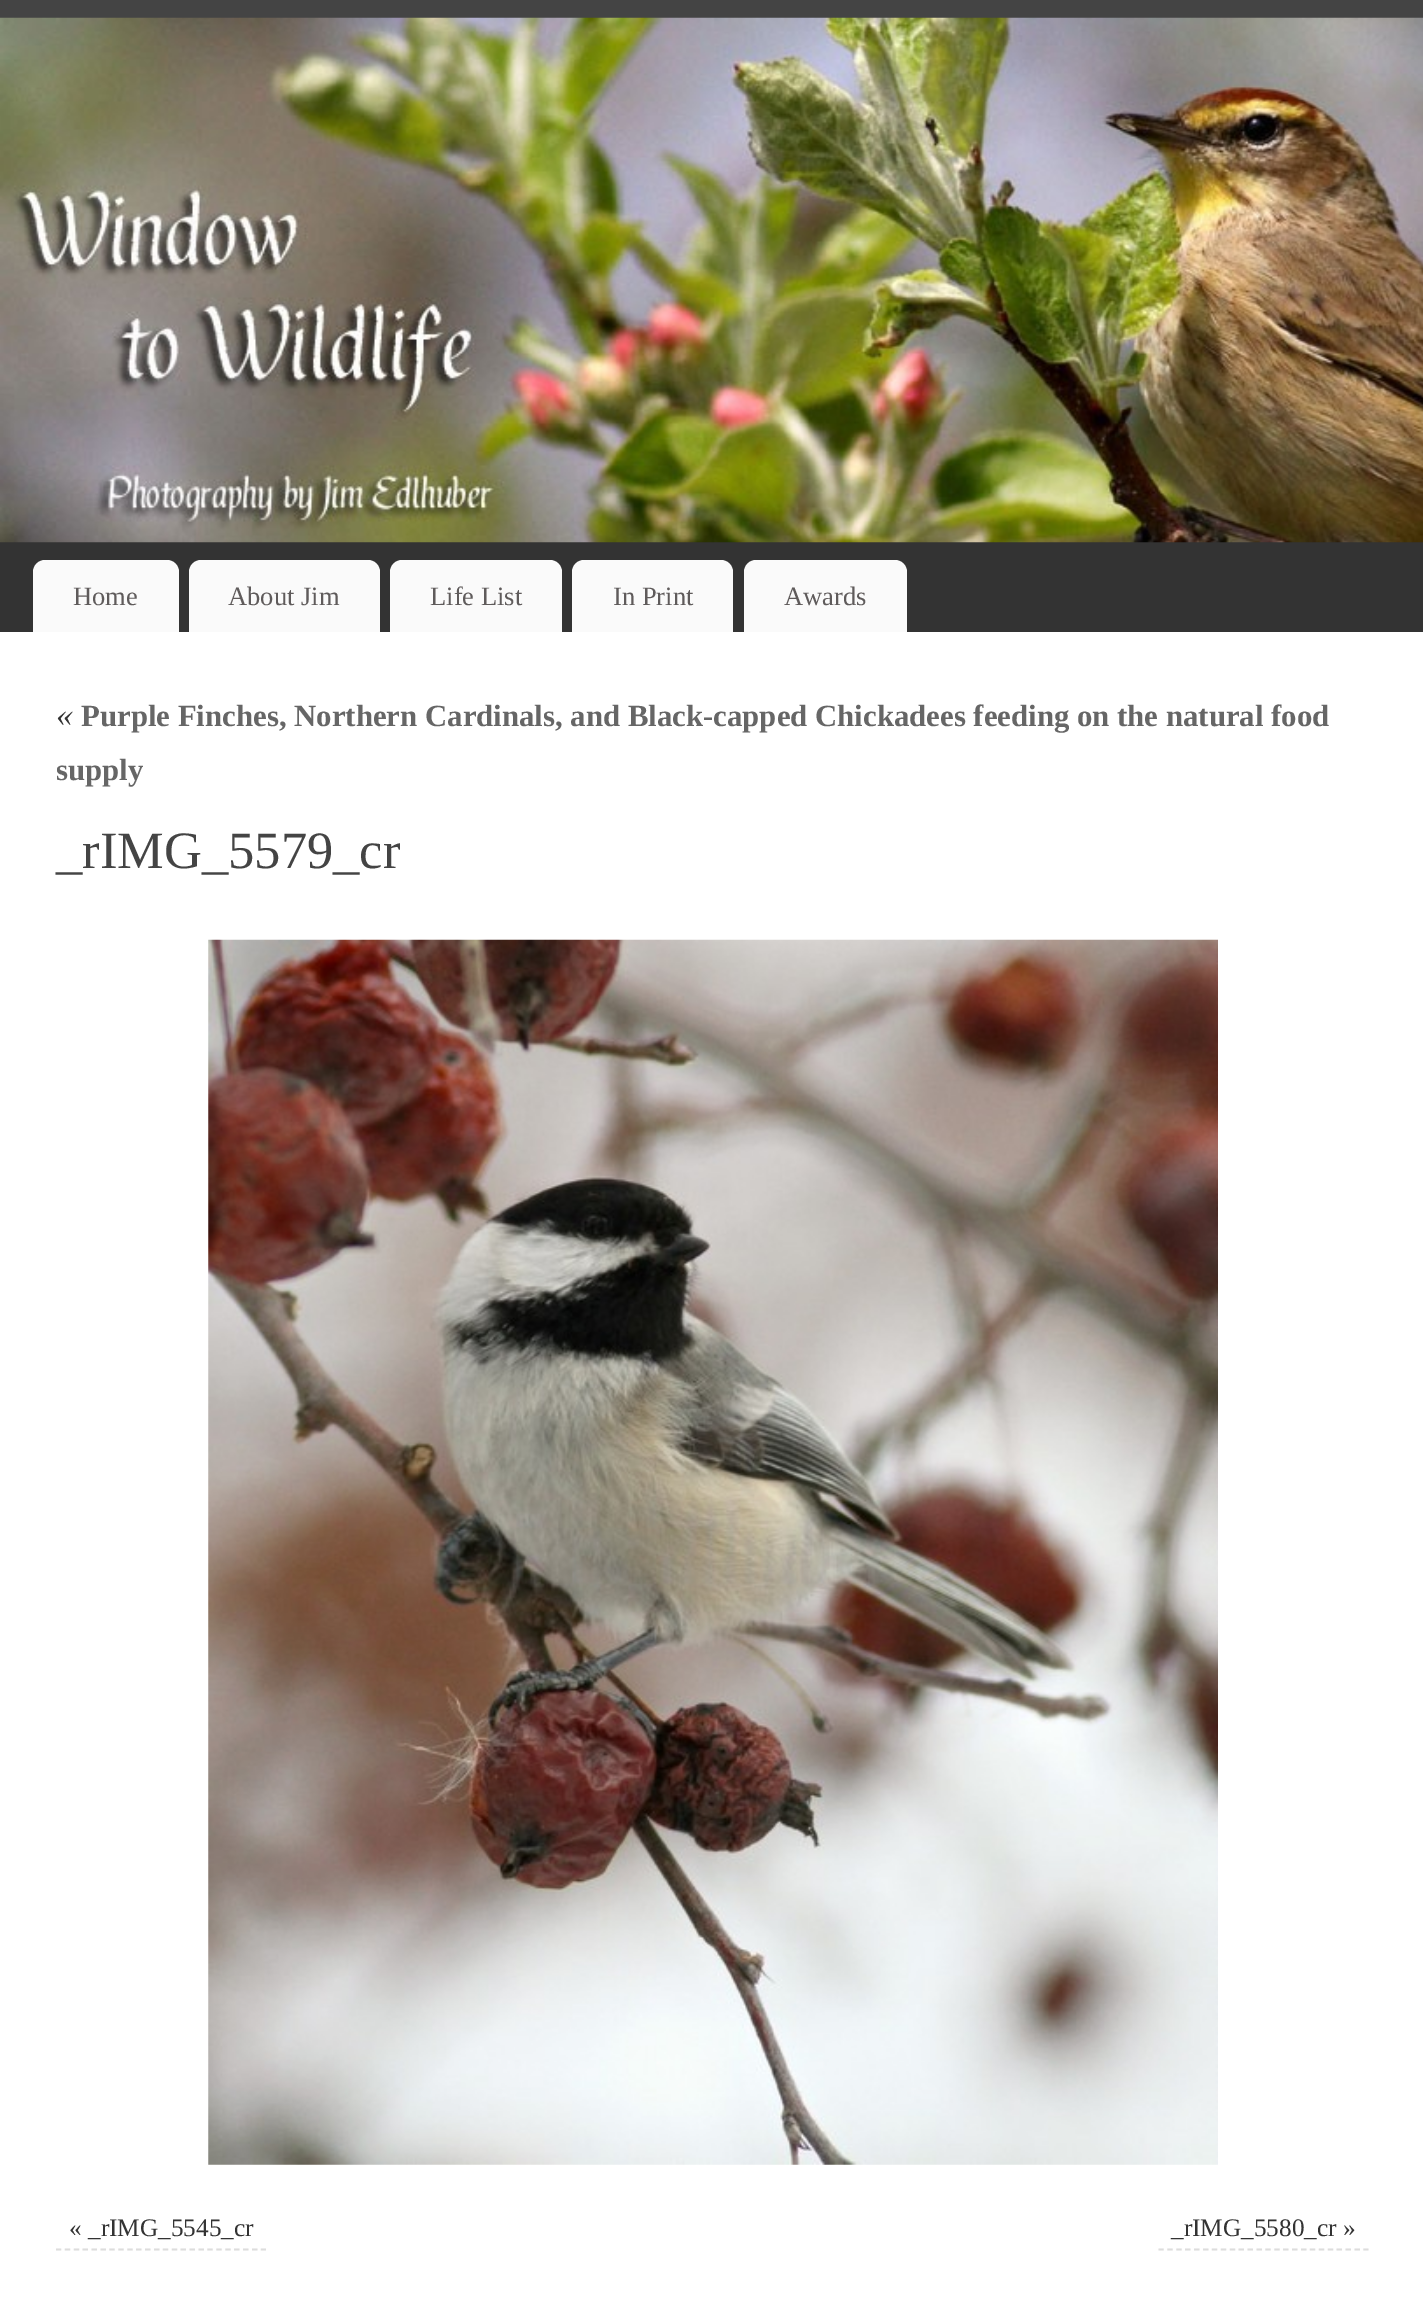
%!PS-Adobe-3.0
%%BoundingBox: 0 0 1423 2323
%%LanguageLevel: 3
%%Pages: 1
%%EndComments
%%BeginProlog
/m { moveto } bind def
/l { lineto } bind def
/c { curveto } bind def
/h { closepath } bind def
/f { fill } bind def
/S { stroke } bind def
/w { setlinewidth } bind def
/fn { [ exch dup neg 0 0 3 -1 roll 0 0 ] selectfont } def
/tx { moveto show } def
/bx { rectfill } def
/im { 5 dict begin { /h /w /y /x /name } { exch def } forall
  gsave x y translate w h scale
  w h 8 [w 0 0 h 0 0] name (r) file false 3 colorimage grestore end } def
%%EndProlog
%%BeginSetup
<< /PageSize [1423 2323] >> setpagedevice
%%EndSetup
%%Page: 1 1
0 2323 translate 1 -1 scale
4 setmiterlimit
0.267 setgray
0 0 1423 2323 bx
0.2 setgray
0 542 1423 90 bx
(image0.raw) 0 17 1423 526 im
0.98 setgray
45 560 m 167 560 l 173.5 560 179 565.5 179 572 c 179 632 l 33 632 l 33 572 l 33 565.5 38.5 560 45 560 c h f
/LiberationSerif-Regular 26.5 fn
0.373 0.357 0.357 setrgbcolor
(Home) 73 605 tx
0.98 setgray
201 560 m 368 560 l 374.5 560 380 565.5 380 572 c 380 632 l 189 632 l 189 572 l 189 565.5 194.5 560 201 560 c h f
0.373 0.357 0.357 setrgbcolor
(About Jim) 228 605 tx
0.98 setgray
402 560 m 550 560 l 556.5 560 562 565.5 562 572 c 562 632 l 390 632 l 390 572 l 390 565.5 395.5 560 402 560 c h f
0.373 0.357 0.357 setrgbcolor
(Life List) 430 605 tx
0.98 setgray
584 560 m 721 560 l 727.5 560 733 565.5 733 572 c 733 632 l 572 632 l 572 572 l 572 565.5 577.5 560 584 560 c h f
0.373 0.357 0.357 setrgbcolor
(In Print) 613 605 tx
0.98 setgray
756 560 m 895 560 l 901.5 560 907 565.5 907 572 c 907 632 l 744 632 l 744 572 l 744 565.5 749.5 560 756 560 c h f
0.373 0.357 0.357 setrgbcolor
(Awards) 784 605 tx
1 setgray
0 632 1423 1691 bx
/LiberationSerif-Italic 34 fn
0.2 setgray
(«) 56 726 tx
/LiberationSerif-Bold 30.8 fn
0.4 setgray
(Purple Finches, Northern Cardinals, and Black-capped Chickadees feeding on the natural food) 81 726 tx
(supply) 56 780 tx
/LiberationSerif-Regular 52.5 fn
0.267 setgray
(_rIMG_5579_cr) 56 868 tx
(image1.raw) 208 939 1010 1226 im
0.867 setgray
1.8 w
[5.25 3.66] 0 setdash
56 2249.5 m 266 2249.5 l S
/LiberationSerif-Regular 25.25 fn
0.2 setgray
(« _rIMG_5545_cr) 69 2236 tx
0.867 setgray
1158.5 2249.5 m 1368.5 2249.5 l S
0.2 setgray
(_rIMG_5580_cr ») 1171 2236 tx
showpage
%%EOF
